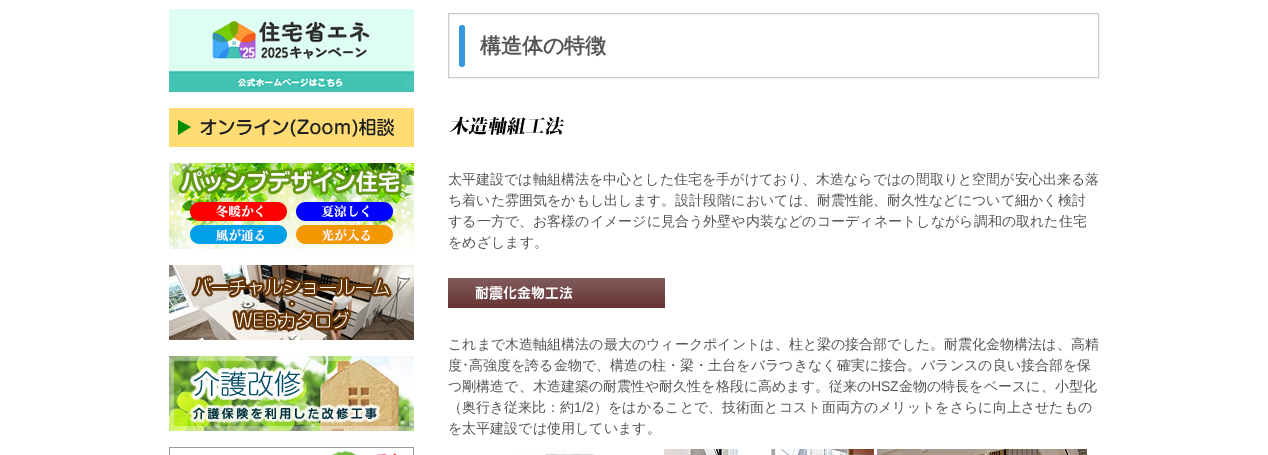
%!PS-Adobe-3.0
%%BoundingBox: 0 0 1268 455
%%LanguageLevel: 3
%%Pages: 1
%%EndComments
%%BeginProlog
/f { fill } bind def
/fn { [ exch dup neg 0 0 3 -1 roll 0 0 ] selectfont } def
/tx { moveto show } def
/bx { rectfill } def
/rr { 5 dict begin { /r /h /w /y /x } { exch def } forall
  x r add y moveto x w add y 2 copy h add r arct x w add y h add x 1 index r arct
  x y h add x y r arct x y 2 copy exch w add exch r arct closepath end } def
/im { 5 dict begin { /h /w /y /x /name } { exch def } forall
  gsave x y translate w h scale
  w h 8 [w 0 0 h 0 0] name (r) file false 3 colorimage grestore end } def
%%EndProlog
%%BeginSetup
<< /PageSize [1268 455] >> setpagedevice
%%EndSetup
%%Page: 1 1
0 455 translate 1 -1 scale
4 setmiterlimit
1 setgray
0 0 1268 455 bx
(image0.raw) 169 9 245 83 im
(image1.raw) 169 108 245 39 im
(image2.raw) 169 163 245 86 im
(image3.raw) 169 265 245 75 im
(image4.raw) 169 356 245 75 im
(image5.raw) 169 447 245 8 im
0.8 setgray
448.5 13.5 650 64 rectstroke
0.204 0.596 0.859 setrgbcolor
459 25 6 42 3 rr f
/WenQuanYiZenHei-Bold 21 fn
0.333 setgray
(構造体の特徴) 480 53 tx
(image6.raw) 449 116 115 19 im
/WenQuanYiZenHei-Medium 14 fn
(太平建設では軸組構法を中心とした住宅を手がけており、木造ならではの間取りと空間が安心出来る落) 448 184 tx
(ち着いた雰囲気をかもし出します。設計段階においては、耐震性能、耐久性などについて細かく検討) 448 205 tx
(する一方で、お客様のイメージに見合う外壁や内装などのコーディネートしながら調和の取れた住宅) 448 226 tx
(をめざします。) 448 247 tx
(image7.raw) 448 278 217 30 im
(これまで木造軸組構法の最大のウィークポイントは、柱と梁の接合部でした。耐震化金物構法は、高精) 448 349 tx
(度) 448 370 tx
/IPAPGothic-Regular 14 fn
(･) 462 370 tx
/WenQuanYiZenHei-Medium 14 fn
(高強度を誇る金物で、構造の柱・梁・土台をバラつきなく確実に接合。バランスの良い接合部を保) 469 370 tx
(つ剛構造で、木造建築の耐震性や耐久性を格段に高めます。従来の) 448 391 tx
/LiberationSans-Regular 14 fn
(HSZ) 871 391 tx
/WenQuanYiZenHei-Medium 14 fn
(金物の特長をベースに、小型化) 899 391 tx
(（奥行き従来比：約) 448 412 tx
/LiberationSans-Regular 14 fn
(1/2) 574 412 tx
/WenQuanYiZenHei-Medium 14 fn
(）をはかることで、技術面とコスト面両方のメリットをさらに向上させたもの) 594 412 tx
(を太平建設では使用しています。) 448 433 tx
(image8.raw) 513 449 82 6 im
(image9.raw) 664 449 210 6 im
(image10.raw) 877 449 210 6 im
showpage
%%EOF
